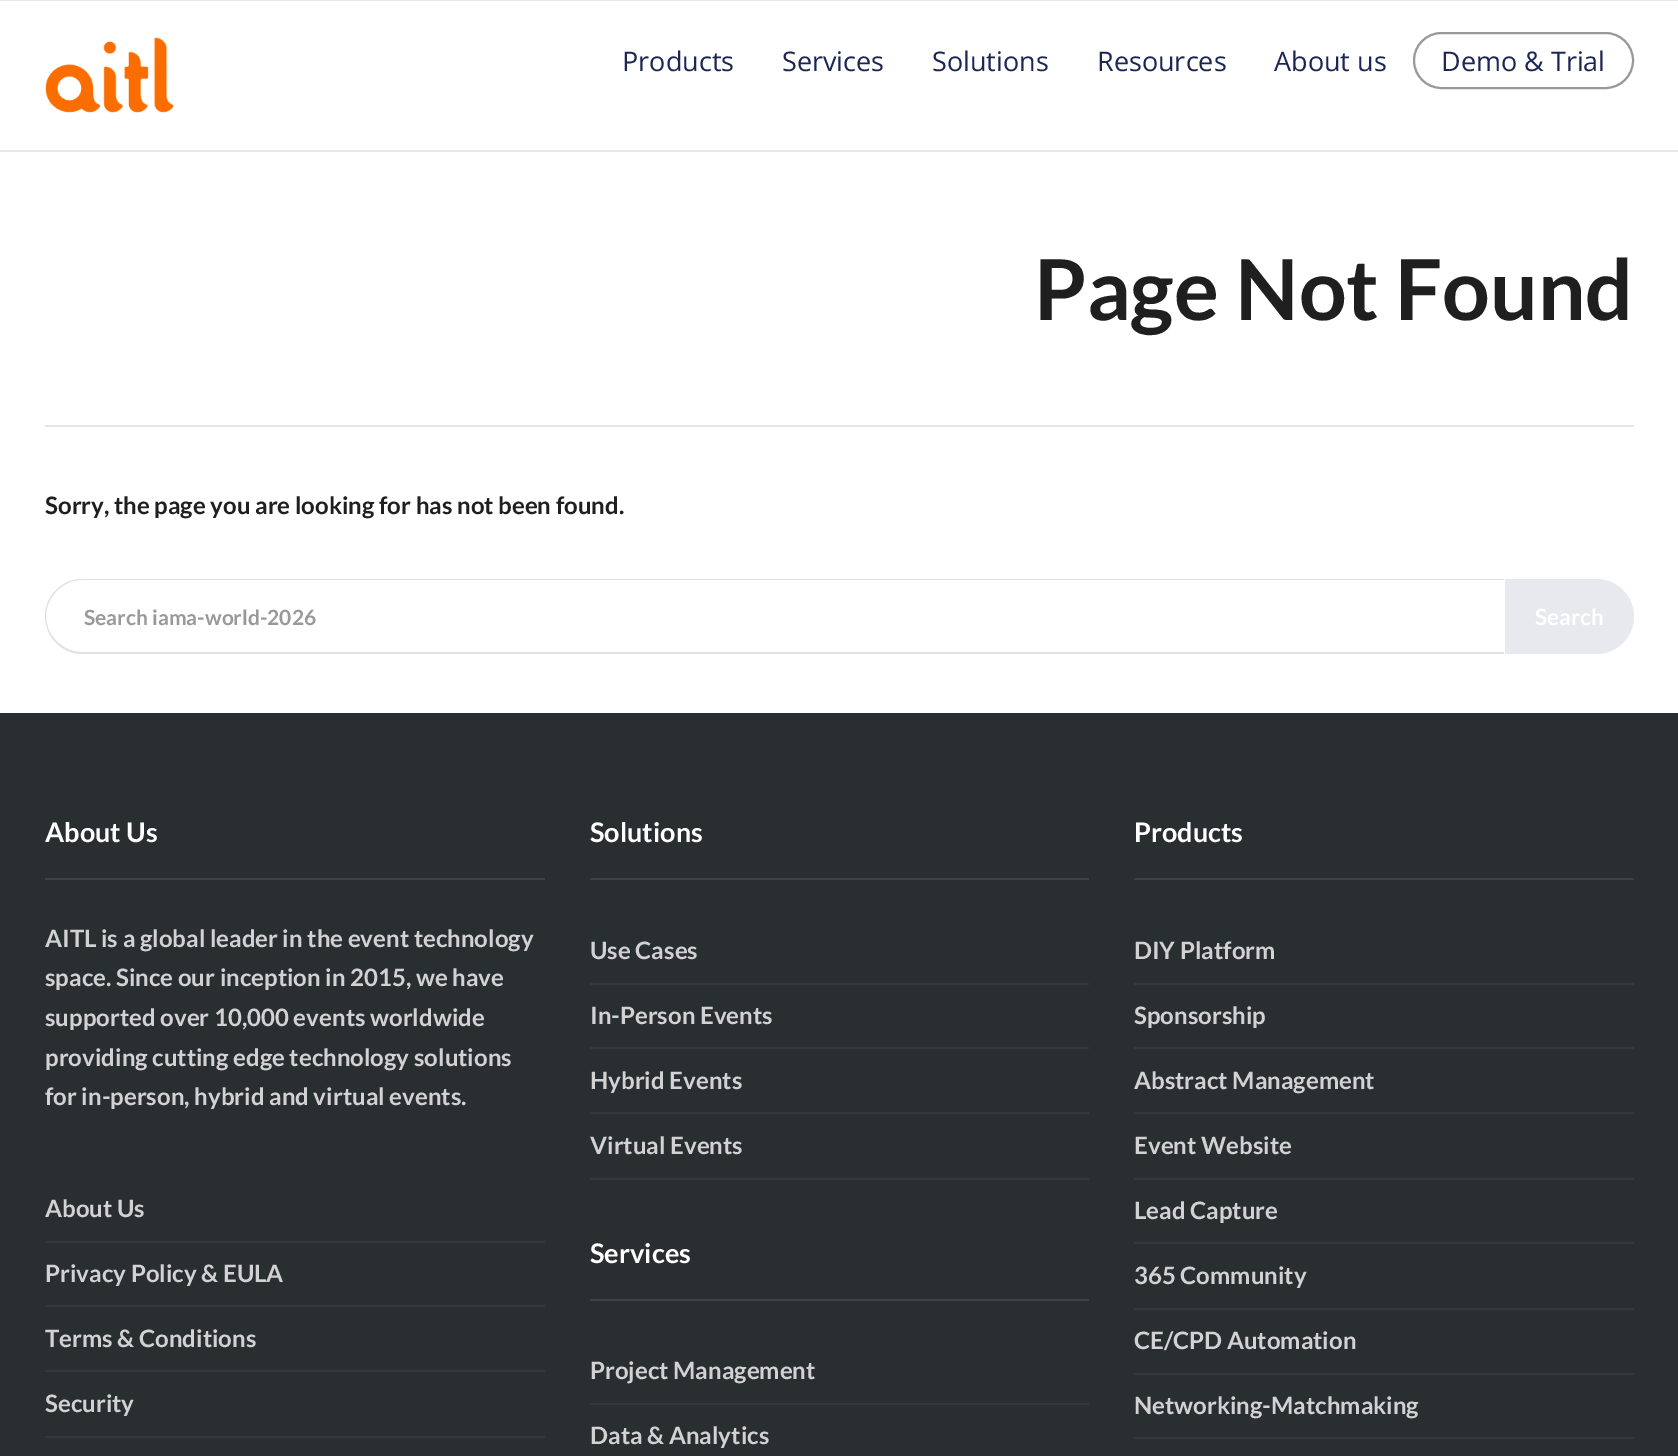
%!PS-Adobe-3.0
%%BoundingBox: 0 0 1678 1456
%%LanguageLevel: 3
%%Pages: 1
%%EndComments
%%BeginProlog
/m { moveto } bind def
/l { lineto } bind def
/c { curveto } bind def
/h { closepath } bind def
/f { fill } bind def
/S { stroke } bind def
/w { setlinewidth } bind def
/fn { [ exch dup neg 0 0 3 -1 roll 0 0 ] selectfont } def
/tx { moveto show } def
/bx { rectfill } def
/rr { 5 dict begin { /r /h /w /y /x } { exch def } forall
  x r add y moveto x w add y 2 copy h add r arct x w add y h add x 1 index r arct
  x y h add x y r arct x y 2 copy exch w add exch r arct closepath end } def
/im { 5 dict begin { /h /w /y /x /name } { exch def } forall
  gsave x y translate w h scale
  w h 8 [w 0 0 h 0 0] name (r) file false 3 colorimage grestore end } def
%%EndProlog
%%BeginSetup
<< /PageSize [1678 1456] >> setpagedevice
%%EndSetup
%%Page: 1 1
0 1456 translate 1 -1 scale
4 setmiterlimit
1 setgray
0 0 1678 1456 bx
0.906 setgray
0 0 1678 1 bx
0 150 1678 2 bx
(image0.raw) 45 37 129 76 im
/OpenSans-Regular 27 fn
0.11 0.149 0.329 setrgbcolor
(Products) 622 71 tx
(Services) 782 71 tx
(Solutions) 932 71 tx
(Resources) 1097 71 tx
(About us) 1274 71 tx
0.6 setgray
2 w
1414 33 219 55 27.5 rr S
0.11 0.149 0.329 setrgbcolor
(Demo & Trial) 1441 71 tx
0.902 setgray
45 425 1589 2 bx
/Lato-Bold 84 fn
0.122 setgray
(Page Not Found) 1034 320 tx
/Lato-Bold 24 fn
(Sorry, the page you are looking for has not been found.) 45 514 tx
0.886 setgray
82 579 m 1504 579 l 1504 654 l 82 654 l 62 654 45 637 45 616 c 45 596 62 579 82 579 c h 82 580 m 1504 580 l 1504 652 l 82 652 l 63 652 46 636 46 616 c 46 597 63 580 82 580 c h eofill
/Lato-Bold 21 fn
0.6 setgray
(Search iama-world-2026) 84 625 tx
0.91 0.914 0.933 setrgbcolor
1505 579 m 1596.5 579 l 1617 579 1634 596 1634 616.5 c 1634 637 1617 654 1596.5 654 c 1505 654 l h f
/Lato-Bold 22.5 fn
1 setgray
(Search) 1535 625 tx
0.161 0.18 0.192 setrgbcolor
0 713 1678 743 bx
0.243 0.263 0.275 setrgbcolor
45 878 500 2 bx
/Lato-Bold 27 fn
1 setgray
(About Us) 45 842 tx
/Lato-Bold 24 fn
0.824 setgray
(AITL is a global leader in the event technology) 45 947 tx
(space. Since our inception in 2015, we have) 45 986 tx
(supported over 10,000 events worldwide) 45 1026 tx
(providing cutting edge technology solutions) 45 1066 tx
(for in-person, hybrid and virtual events.) 45 1105 tx
0.204 0.22 0.231 setrgbcolor
45 1241 500 2 bx
0.824 setgray
(About Us) 45 1217 tx
0.204 0.22 0.231 setrgbcolor
45 1305 500 2 bx
0.824 setgray
(Privacy Policy & EULA) 45 1282 tx
0.204 0.22 0.231 setrgbcolor
45 1370 500 2 bx
0.824 setgray
(Terms & Conditions) 45 1347 tx
0.204 0.22 0.231 setrgbcolor
45 1436 500 2 bx
0.824 setgray
(Security) 45 1412 tx
0.243 0.263 0.275 setrgbcolor
590 878 499 2 bx
/Lato-Bold 27 fn
1 setgray
(Solutions) 590 842 tx
0.204 0.22 0.231 setrgbcolor
590 983 499 2 bx
/Lato-Bold 24 fn
0.824 setgray
(Use Cases) 590 959 tx
0.204 0.22 0.231 setrgbcolor
590 1047 499 2 bx
0.824 setgray
(In-Person Events) 590 1024 tx
0.204 0.22 0.231 setrgbcolor
590 1112 499 2 bx
0.824 setgray
(Hybrid Events) 590 1089 tx
0.204 0.22 0.231 setrgbcolor
590 1178 499 2 bx
0.824 setgray
(Virtual Events) 590 1154 tx
0.243 0.263 0.275 setrgbcolor
590 1299 499 2 bx
/Lato-Bold 27 fn
1 setgray
(Services) 590 1263 tx
0.204 0.22 0.231 setrgbcolor
590 1403 499 2 bx
/Lato-Bold 24 fn
0.824 setgray
(Project Management) 590 1379 tx
(Data & Analytics) 590 1444 tx
0.243 0.263 0.275 setrgbcolor
1134 878 500 2 bx
/Lato-Bold 27 fn
1 setgray
(Products) 1134 842 tx
0.204 0.22 0.231 setrgbcolor
1134 983 500 2 bx
/Lato-Bold 24 fn
0.824 setgray
(DIY Platform) 1134 959 tx
0.204 0.22 0.231 setrgbcolor
1134 1047 500 2 bx
0.824 setgray
(Sponsorship) 1134 1024 tx
0.204 0.22 0.231 setrgbcolor
1134 1112 500 2 bx
0.824 setgray
(Abstract Management) 1134 1089 tx
0.204 0.22 0.231 setrgbcolor
1134 1178 500 2 bx
0.824 setgray
(Event Website) 1134 1154 tx
0.204 0.22 0.231 setrgbcolor
1134 1242 500 2 bx
0.824 setgray
(Lead Capture) 1134 1219 tx
0.204 0.22 0.231 setrgbcolor
1134 1308 500 2 bx
0.824 setgray
(365 Community) 1134 1284 tx
0.204 0.22 0.231 setrgbcolor
1134 1373 500 2 bx
0.824 setgray
(CE/CPD Automation) 1134 1349 tx
0.204 0.22 0.231 setrgbcolor
1134 1437 500 2 bx
0.824 setgray
(Networking-Matchmaking) 1134 1414 tx
showpage
%%EOF
